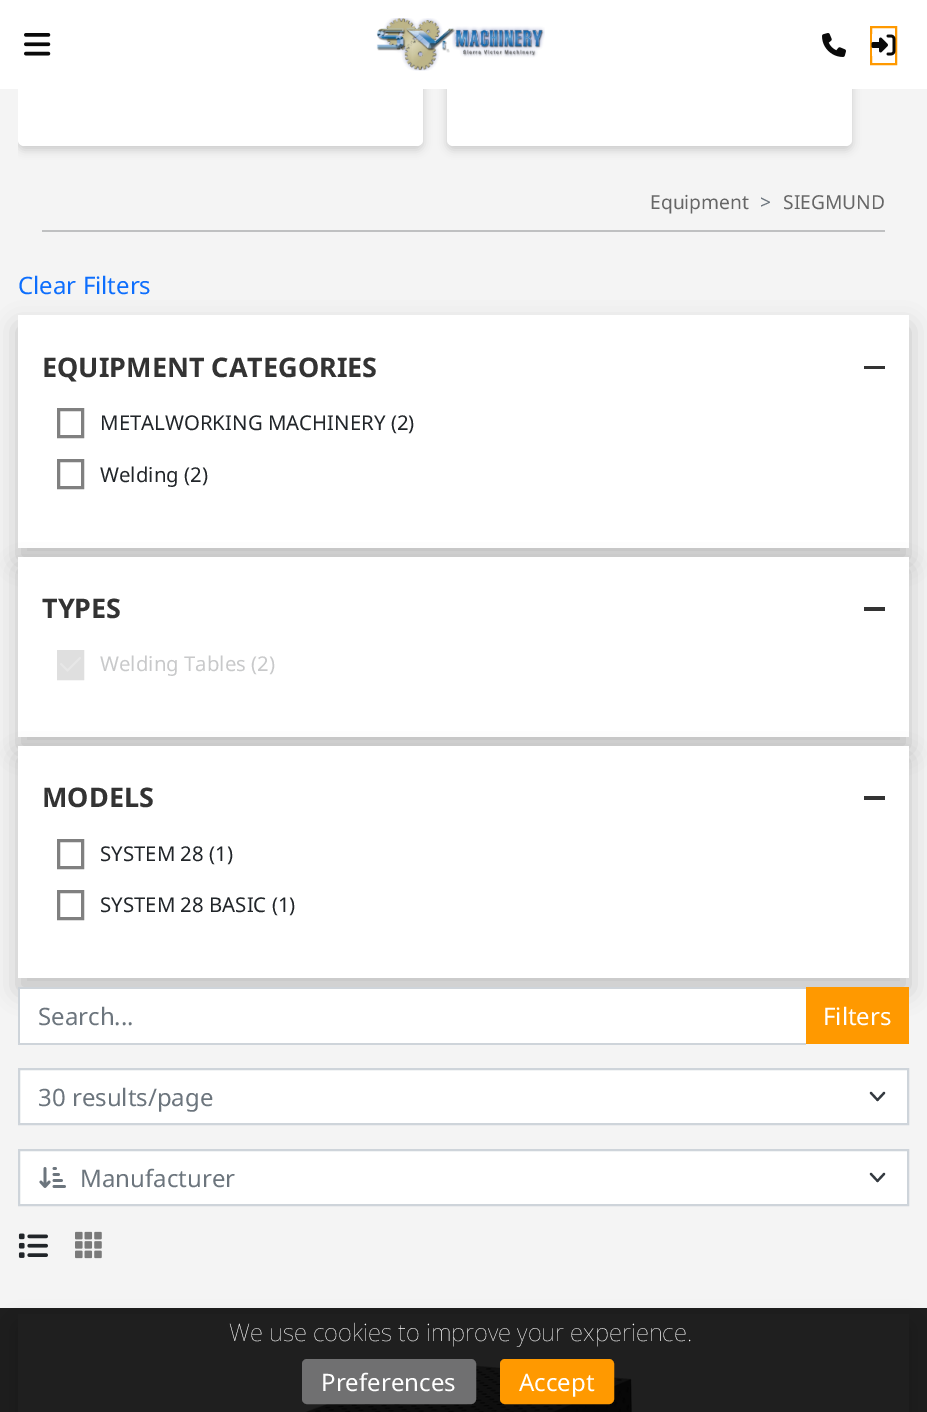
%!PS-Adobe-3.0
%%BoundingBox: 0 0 927 1412
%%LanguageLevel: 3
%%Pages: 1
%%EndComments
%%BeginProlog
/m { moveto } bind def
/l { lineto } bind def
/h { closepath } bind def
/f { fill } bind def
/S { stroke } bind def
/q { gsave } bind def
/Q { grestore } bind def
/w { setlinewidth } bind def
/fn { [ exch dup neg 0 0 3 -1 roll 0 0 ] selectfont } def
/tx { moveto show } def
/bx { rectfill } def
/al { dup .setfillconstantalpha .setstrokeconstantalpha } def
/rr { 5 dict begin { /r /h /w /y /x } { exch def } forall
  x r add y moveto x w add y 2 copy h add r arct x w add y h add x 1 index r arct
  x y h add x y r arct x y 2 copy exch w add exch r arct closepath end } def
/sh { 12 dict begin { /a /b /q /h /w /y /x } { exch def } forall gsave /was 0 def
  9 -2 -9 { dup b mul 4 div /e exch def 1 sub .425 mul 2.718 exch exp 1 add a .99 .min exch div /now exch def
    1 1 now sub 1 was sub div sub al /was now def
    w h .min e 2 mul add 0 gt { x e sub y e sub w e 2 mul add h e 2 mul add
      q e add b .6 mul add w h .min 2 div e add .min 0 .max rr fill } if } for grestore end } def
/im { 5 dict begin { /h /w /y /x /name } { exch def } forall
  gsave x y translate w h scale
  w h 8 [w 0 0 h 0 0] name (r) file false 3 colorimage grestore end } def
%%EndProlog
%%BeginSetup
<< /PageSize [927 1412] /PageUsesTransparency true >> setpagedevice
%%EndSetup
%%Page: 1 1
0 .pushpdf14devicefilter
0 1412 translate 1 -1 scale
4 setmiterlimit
0.957 setgray
0 0 927 1412 bx
q
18 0 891 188 rectclip
0 setgray
18 6 405 144 6 4.5 0.16 sh
Q
1 setgray
18 2 405 144 6 rr f
0 setgray
447 6 405 144 6 4.5 0.16 sh
1 setgray
447 2 405 144 6 rr f
0 0 927 89 bx
(image0.raw) 24 33 27 23 im
(image1.raw) 376 18 169 53 im
(image2.raw) 822 33 24 24 im
1 0.6 0 setrgbcolor
2 w
871 27 25 37 rectstroke
(image3.raw) 871 34 25 22 im
/NotoSans-Regular 19.25 fn
0.4 setgray
(Equipment) 650 209 tx
0.424 0.459 0.49 setrgbcolor
(>) 760 209 tx
0.4 setgray
(SIEGMUND) 783 209 tx
0.749 0.753 0.757 setrgbcolor
42 230 843 2 bx
0 setgray
18 327 891 233 0 12 0.2 sh
/NotoSans-Regular 24 fn
0.051 0.431 0.992 setrgbcolor
(Clear Filters) 18 294 tx
1 setgray
18 315 891 233 bx
/NotoSans-Bold 27 fn
0.2 setgray
(EQUIPMENT CATEGORIES) 42 377 tx
864 366 21 3 bx
0.502 setgray
3 w
58.5 409.5 24 27 rectstroke
/NotoSans-Regular 20.4 fn
0.129 0.145 0.161 setrgbcolor
(METALWORKING MACHINERY \(2\)) 100 430 tx
0.502 setgray
58.5 460.5 24 27 rectstroke
0.129 0.145 0.161 setrgbcolor
(Welding \(2\)) 100 482 tx
0 setgray
18 569 891 180 0 12 0.2 sh
1 setgray
18 557 891 180 bx
/NotoSans-Bold 27 fn
0.2 setgray
(TYPES) 42 618 tx
864 607 21 4 bx
0.875 setgray
58.5 651.5 24 27 rectstroke
60 653 21 24 bx
(image4.raw) 60 657 21 15 im
/NotoSans-Regular 20.4 fn
0.784 0.788 0.792 setrgbcolor
(Welding Tables \(2\)) 100 671 tx
0 setgray
18 758 891 232 0 12 0.2 sh
1 setgray
18 746 891 232 bx
/NotoSans-Bold 27 fn
0.2 setgray
(MODELS) 42 807 tx
864 796 21 4 bx
0.502 setgray
58.5 840.5 24 27 rectstroke
/NotoSans-Regular 20.4 fn
0.129 0.145 0.161 setrgbcolor
(SYSTEM 28 \(1\)) 100 861 tx
0.502 setgray
58.5 891.5 24 27 rectstroke
0.129 0.145 0.161 setrgbcolor
(SYSTEM 28 BASIC \(1\)) 100 912 tx
1 setgray
20 989 786 54 bx
0.808 0.831 0.855 setrgbcolor
18 987 788 2 bx
18 1043 788 2 bx
18 987 2 57 bx
/NotoSans-Regular 24 fn
0.424 0.459 0.49 setrgbcolor
(Search...) 38 1025 tx
1 0.6 0 setrgbcolor
806 987 103 57 bx
1 setgray
(Filters) 823 1025 tx
20 1070 887 53 bx
0.204 0.227 0.251 setrgbcolor
2.2 w
1 setlinecap
1 setlinejoin
871 1093 m 877.5 1100 l 884 1093 l S
0.808 0.831 0.855 setrgbcolor
2 w
0 setlinecap
0 setlinejoin
19 1069 889 55 rectstroke
0.424 0.459 0.49 setrgbcolor
(30 results/page) 38 1106 tx
1 setgray
20 1151 887 53 bx
0.204 0.227 0.251 setrgbcolor
2.2 w
1 setlinecap
1 setlinejoin
871 1174 m 877.5 1181 l 884 1174 l S
0.808 0.831 0.855 setrgbcolor
2 w
0 setlinecap
0 setlinejoin
19 1150 889 55 rectstroke
(image5.raw) 39 1167 27 21 im
0.424 0.459 0.49 setrgbcolor
(Manufacturer) 80 1187 tx
(image6.raw) 18 1233 30 25 im
(image7.raw) 75 1231 27 28 im
1 setgray
18 1314 891 98 bx
q
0 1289 m 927 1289 l 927 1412 l 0 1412 l h 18 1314 m 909 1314 l 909 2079 l 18 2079 l h eoclip newpath
0 setgray
18 1326 891 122 0 12 0.15 sh
Q
(image8.raw) 305 1362 327 50 im
0.88 al
0 setgray
0 1308 927 104 bx
/NotoSans-Thin 24 fn
1 al
1 setgray
(We use cookies to improve your experience.) 229 1341 tx
0.439 0.439 0.443 setrgbcolor
303 1360 172 43 4 rr q f Q
S
/NotoSans-Regular 24 fn
1 setgray
(Preferences) 321 1391 tx
1 0.6 0 setrgbcolor
501 1360 112 43 4 rr q f Q
S
1 setgray
(Accept) 519 1391 tx
.poppdf14devicefilter showpage
%%EOF
